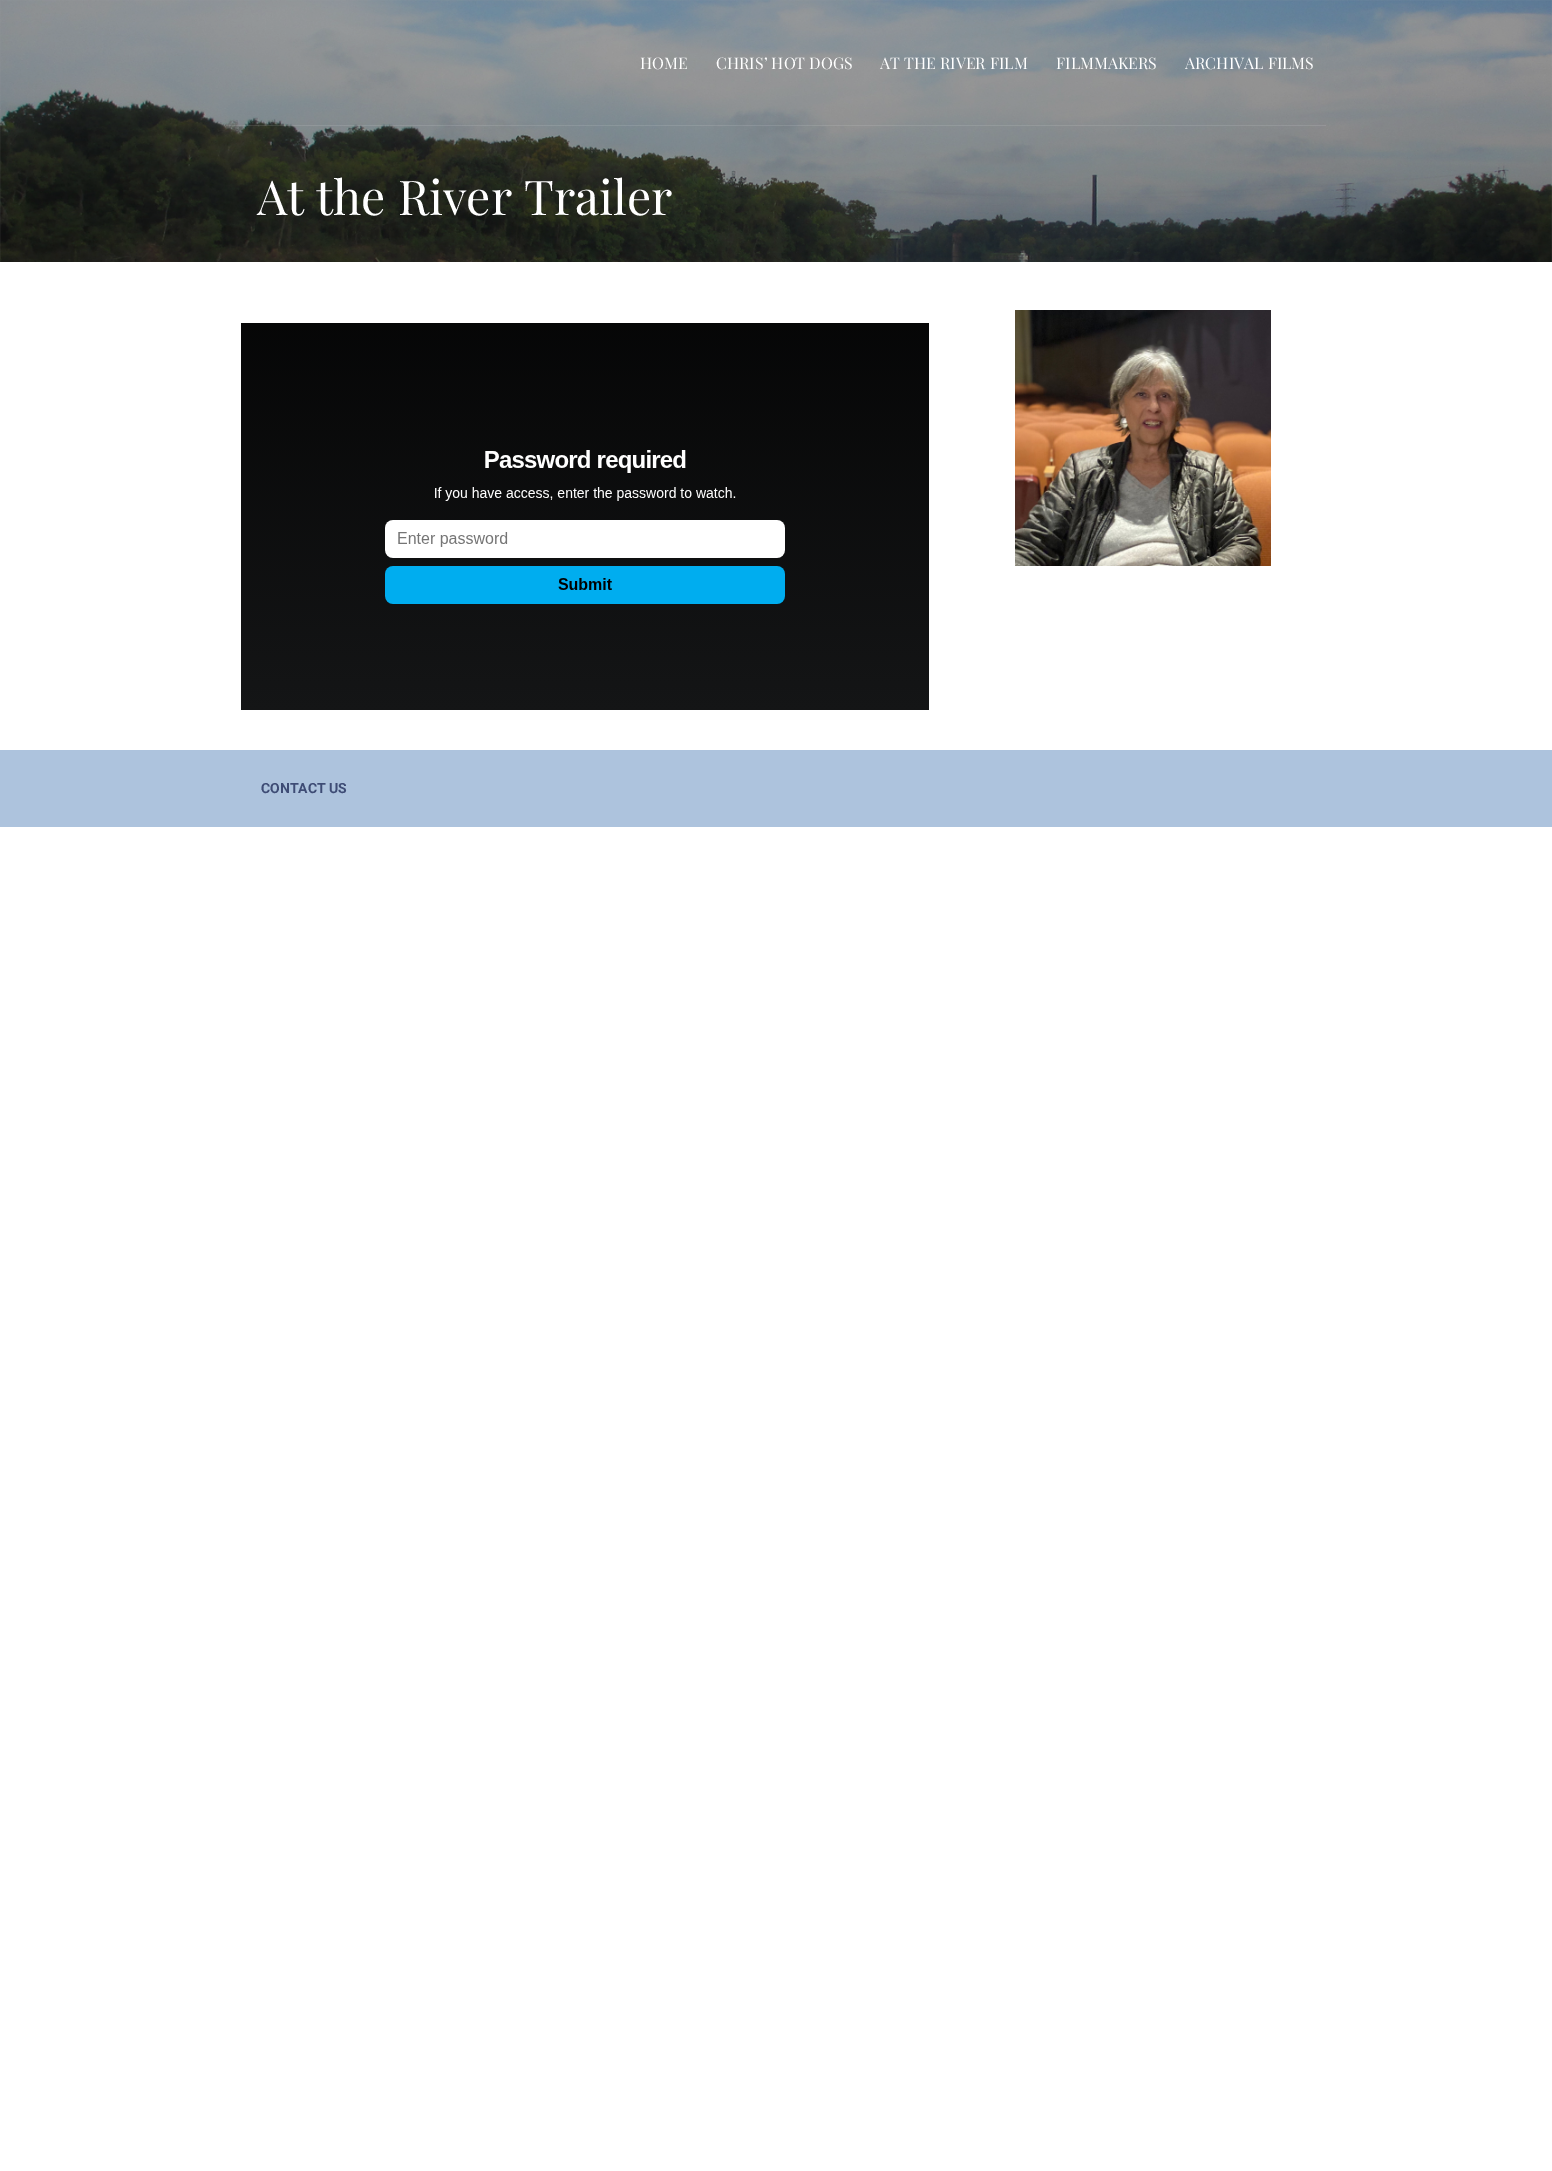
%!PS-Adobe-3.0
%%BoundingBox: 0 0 1552 2171
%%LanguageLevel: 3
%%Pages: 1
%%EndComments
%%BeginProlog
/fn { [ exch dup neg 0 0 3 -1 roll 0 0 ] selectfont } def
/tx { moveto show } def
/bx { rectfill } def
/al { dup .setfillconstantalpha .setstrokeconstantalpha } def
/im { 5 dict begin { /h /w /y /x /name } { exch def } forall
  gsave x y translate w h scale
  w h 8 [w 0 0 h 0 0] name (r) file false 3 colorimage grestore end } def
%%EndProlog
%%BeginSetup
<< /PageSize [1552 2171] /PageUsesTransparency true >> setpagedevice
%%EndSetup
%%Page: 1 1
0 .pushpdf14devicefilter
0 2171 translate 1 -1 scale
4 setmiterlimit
1 setgray
0 0 1552 2171 bx
(image0.raw) 0 0 1552 262 im
0.1 al
226 125 1100 1 bx
/PlayfairDisplay-Regular 16 fn
1 al
(HOME) 640 69 tx
(CHRIS’ HOT DOGS) 716 69 tx
(AT THE RIVER FILM) 880 69 tx
(FILMMAKERS) 1056 69 tx
(ARCHIVAL FILMS) 1185 69 tx
/PlayfairDisplay-Regular 48 fn
(At the River Trailer) 257 215 tx
(image1.raw) 241 323 688 387 im
(image2.raw) 1015 310 256 256 im
0.678 0.765 0.867 setrgbcolor
0 750 1552 77 bx
/Roboto-Bold 14 fn
0.243 0.298 0.459 setrgbcolor
(CONTACT US) 261 793 tx
.poppdf14devicefilter showpage
%%EOF
